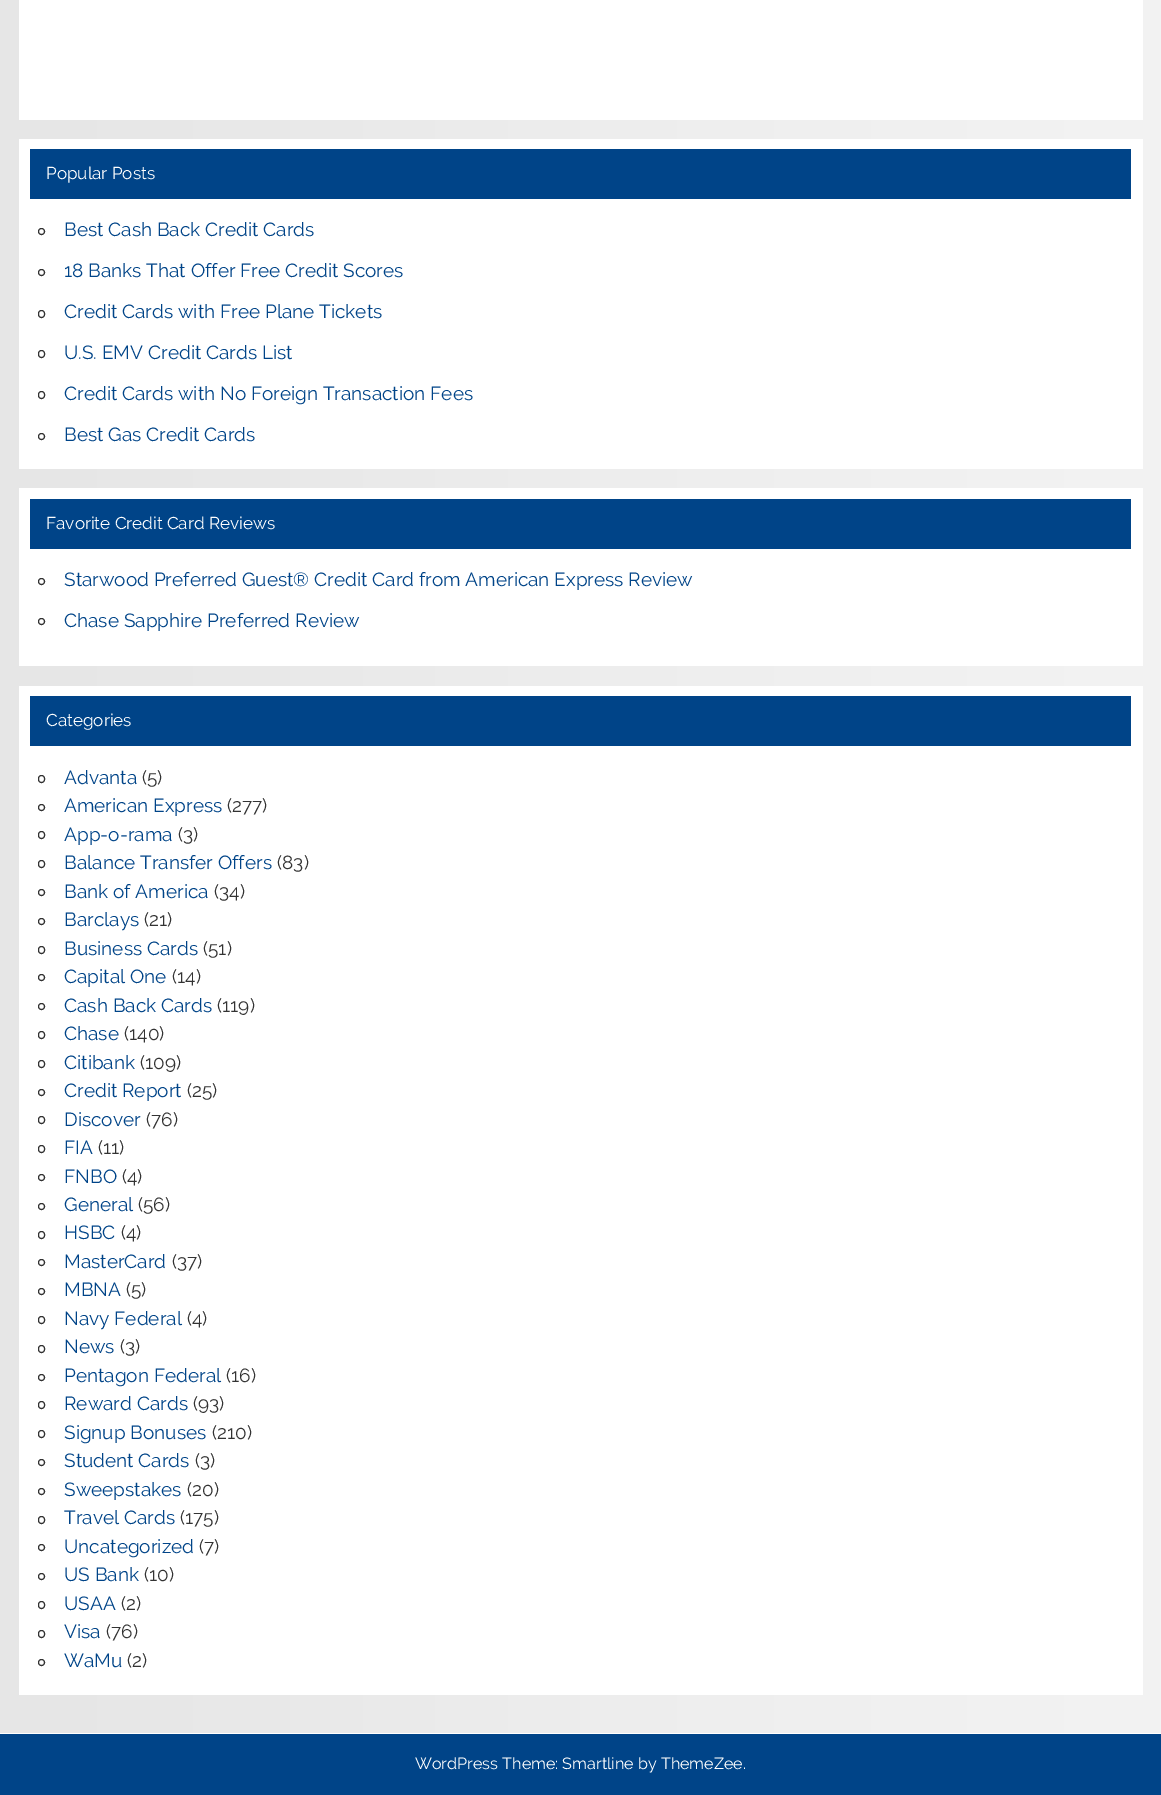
%!PS-Adobe-3.0
%%BoundingBox: 0 0 1161 1795
%%LanguageLevel: 3
%%Pages: 1
%%EndComments
%%BeginProlog
/m { moveto } bind def
/l { lineto } bind def
/h { closepath } bind def
/S { stroke } bind def
/q { gsave } bind def
/Q { grestore } bind def
/fn { [ exch dup neg 0 0 3 -1 roll 0 0 ] selectfont } def
/tx { moveto show } def
/bx { rectfill } def
/ci { newpath 0 360 arc closepath } def
/rr { 5 dict begin { /r /h /w /y /x } { exch def } forall
  x r add y moveto x w add y 2 copy h add r arct x w add y h add x 1 index r arct
  x y h add x y r arct x y 2 copy exch w add exch r arct closepath end } def
%%EndProlog
%%BeginSetup
<< /PageSize [1161 1795] >> setpagedevice
%%EndSetup
%%Page: 1 1
0 1795 translate 1 -1 scale
4 setmiterlimit
1 setgray
0 0 1161 1795 bx
q 0 0 m 1161 0 l 1161 1733 l 0 1733 l h clip newpath
<< /ShadingType 2 /ColorSpace /DeviceRGB /Coords [0 723 1161 723] /Extend [true true] /Function << /FunctionType 2 /Domain [0 1] /C0 [0.902 0.902 0.902] /C1 [0.953 0.953 0.953] /N 1 >> >> shfill Q
19 0 1124 120 bx
19 139 1124 330 bx
0 0.267 0.533 setrgbcolor
30 149 1101 50 bx
/Raleway-Regular 17.1 fn
1 setgray
(Popular Posts) 46 179 tx
0.2 setgray
41.5 231.5 3 ci S
/Raleway-Regular 19 fn
0 0.267 0.533 setrgbcolor
(Best Cash Back Credit Cards) 64 236 tx
0.2 setgray
41.5 272.5 3 ci S
0 0.267 0.533 setrgbcolor
(18 Banks That Offer Free Credit Scores) 64 277 tx
0.2 setgray
38.5 310.5 6 7 3 rr S
0 0.267 0.533 setrgbcolor
(Credit Cards with Free Plane Tickets) 64 318 tx
0.2 setgray
38.5 350.5 6 7 3 rr S
0 0.267 0.533 setrgbcolor
(U.S. EMV Credit Cards List) 64 359 tx
0.2 setgray
38.5 391.5 6 7 3 rr S
0 0.267 0.533 setrgbcolor
(Credit Cards with No Foreign Transaction Fees) 64 400 tx
0.2 setgray
41.5 436.5 3 ci S
0 0.267 0.533 setrgbcolor
(Best Gas Credit Cards) 64 441 tx
1 setgray
19 488 1124 178 bx
0 0.267 0.533 setrgbcolor
30 499 1101 50 bx
/Raleway-Regular 17.1 fn
1 setgray
(Favorite Credit Card Reviews) 46 529 tx
0.2 setgray
41.5 581.5 3 ci S
/Raleway-Regular 19 fn
0 0.267 0.533 setrgbcolor
(Starwood Preferred Guest® Credit Card from American Express Review) 64 586 tx
0.2 setgray
41.5 621.5 3 ci S
0 0.267 0.533 setrgbcolor
(Chase Sapphire Preferred Review) 64 627 tx
1 setgray
19 686 1124 1009 bx
0 0.267 0.533 setrgbcolor
30 696 1101 50 bx
/Raleway-Regular 17.1 fn
1 setgray
(Categories) 46 726 tx
0.2 setgray
38.5 775.5 6 7 3 rr S
/Raleway-Regular 19 fn
0 0.267 0.533 setrgbcolor
(Advanta) 64 784 tx
0.2 setgray
(\(5\)) 142 784 tx
41.5 807.5 3 ci S
0 0.267 0.533 setrgbcolor
(American Express) 64 812 tx
0.2 setgray
(\(277\)) 227 812 tx
38.5 831.5 6 7 3 rr S
0 0.267 0.533 setrgbcolor
(App-o-rama) 64 841 tx
0.2 setgray
(\(3\)) 178 841 tx
38.5 860.5 6 7 3 rr S
0 0.267 0.533 setrgbcolor
(Balance Transfer Offers) 64 869 tx
0.2 setgray
(\(83\)) 277 869 tx
41.5 892.5 3 ci S
0 0.267 0.533 setrgbcolor
(Bank of America) 64 898 tx
0.2 setgray
(\(34\)) 214 898 tx
41.5 921.5 3 ci S
0 0.267 0.533 setrgbcolor
(Barclays) 64 926 tx
0.2 setgray
(\(21\)) 144 926 tx
38.5 946.5 6 7 3 rr S
0 0.267 0.533 setrgbcolor
(Business Cards) 64 955 tx
0.2 setgray
(\(51\)) 203 955 tx
41.5 977.5 3 ci S
0 0.267 0.533 setrgbcolor
(Capital One) 64 983 tx
0.2 setgray
(\(14\)) 172 983 tx
41.5 1006.5 3 ci S
0 0.267 0.533 setrgbcolor
(Cash Back Cards) 64 1012 tx
0.2 setgray
(\(119\)) 217 1012 tx
38.5 1031.5 6 7 3 rr S
0 0.267 0.533 setrgbcolor
(Chase) 64 1040 tx
0.2 setgray
(\(140\)) 124 1040 tx
38.5 1060.5 6 7 3 rr S
0 0.267 0.533 setrgbcolor
(Citibank) 64 1069 tx
0.2 setgray
(\(109\)) 140 1069 tx
41.5 1092.5 3 ci S
0 0.267 0.533 setrgbcolor
(Credit Report) 64 1097 tx
0.2 setgray
(\(25\)) 187 1097 tx
38.5 1116.5 6 7 3 rr S
0 0.267 0.533 setrgbcolor
(Discover) 64 1126 tx
0.2 setgray
(\(76\)) 146 1126 tx
38.5 1145.5 6 7 3 rr S
0 0.267 0.533 setrgbcolor
(FIA) 64 1154 tx
0.2 setgray
(\(11\)) 98 1154 tx
41.5 1177.5 3 ci S
0 0.267 0.533 setrgbcolor
(FNBO) 64 1183 tx
0.2 setgray
(\(4\)) 122 1183 tx
41.5 1206.5 3 ci S
0 0.267 0.533 setrgbcolor
(General) 64 1211 tx
0.2 setgray
(\(56\)) 138 1211 tx
38.5 1231.5 6 7 3 rr S
0 0.267 0.533 setrgbcolor
(HSBC) 64 1239 tx
0.2 setgray
(\(4\)) 121 1239 tx
41.5 1262.5 3 ci S
0 0.267 0.533 setrgbcolor
(MasterCard) 64 1268 tx
0.2 setgray
(\(37\)) 172 1268 tx
41.5 1291.5 3 ci S
0 0.267 0.533 setrgbcolor
(MBNA) 64 1296 tx
0.2 setgray
(\(5\)) 126 1296 tx
38.5 1316.5 6 7 3 rr S
0 0.267 0.533 setrgbcolor
(Navy Federal) 64 1325 tx
0.2 setgray
(\(4\)) 187 1325 tx
38.5 1345.5 6 7 3 rr S
0 0.267 0.533 setrgbcolor
(News) 64 1353 tx
0.2 setgray
(\(3\)) 120 1353 tx
41.5 1377.5 3 ci S
0 0.267 0.533 setrgbcolor
(Pentagon Federal) 64 1382 tx
0.2 setgray
(\(16\)) 226 1382 tx
38.5 1401.5 6 7 3 rr S
0 0.267 0.533 setrgbcolor
(Reward Cards) 64 1410 tx
0.2 setgray
(\(93\)) 193 1410 tx
38.5 1430.5 6 7 3 rr S
0 0.267 0.533 setrgbcolor
(Signup Bonuses) 64 1439 tx
0.2 setgray
(\(210\)) 212 1439 tx
41.5 1462.5 3 ci S
0 0.267 0.533 setrgbcolor
(Student Cards) 64 1467 tx
0.2 setgray
(\(3\)) 195 1467 tx
41.5 1491.5 3 ci S
0 0.267 0.533 setrgbcolor
(Sweepstakes) 64 1496 tx
0.2 setgray
(\(20\)) 187 1496 tx
38.5 1516.5 6 7 3 rr S
0 0.267 0.533 setrgbcolor
(Travel Cards) 64 1524 tx
0.2 setgray
(\(175\)) 180 1524 tx
41.5 1547.5 3 ci S
0 0.267 0.533 setrgbcolor
(Uncategorized) 64 1553 tx
0.2 setgray
(\(7\)) 199 1553 tx
41.5 1576.5 3 ci S
0 0.267 0.533 setrgbcolor
(US Bank) 64 1581 tx
0.2 setgray
(\(10\)) 144 1581 tx
38.5 1601.5 6 7 3 rr S
0 0.267 0.533 setrgbcolor
(USAA) 64 1610 tx
0.2 setgray
(\(2\)) 121 1610 tx
38.5 1630.5 6 7 3 rr S
0 0.267 0.533 setrgbcolor
(Visa) 64 1638 tx
0.2 setgray
(\(76\)) 106 1638 tx
41.5 1662.5 3 ci S
0 0.267 0.533 setrgbcolor
(WaMu) 64 1667 tx
0.2 setgray
(\(2\)) 127 1667 tx
0 0.267 0.533 setrgbcolor
0 1734 1161 61 bx
/Raleway-Regular 16.15 fn
1 setgray
(WordPress Theme: Smartline by ThemeZee.) 415 1769 tx
showpage
%%EOF
